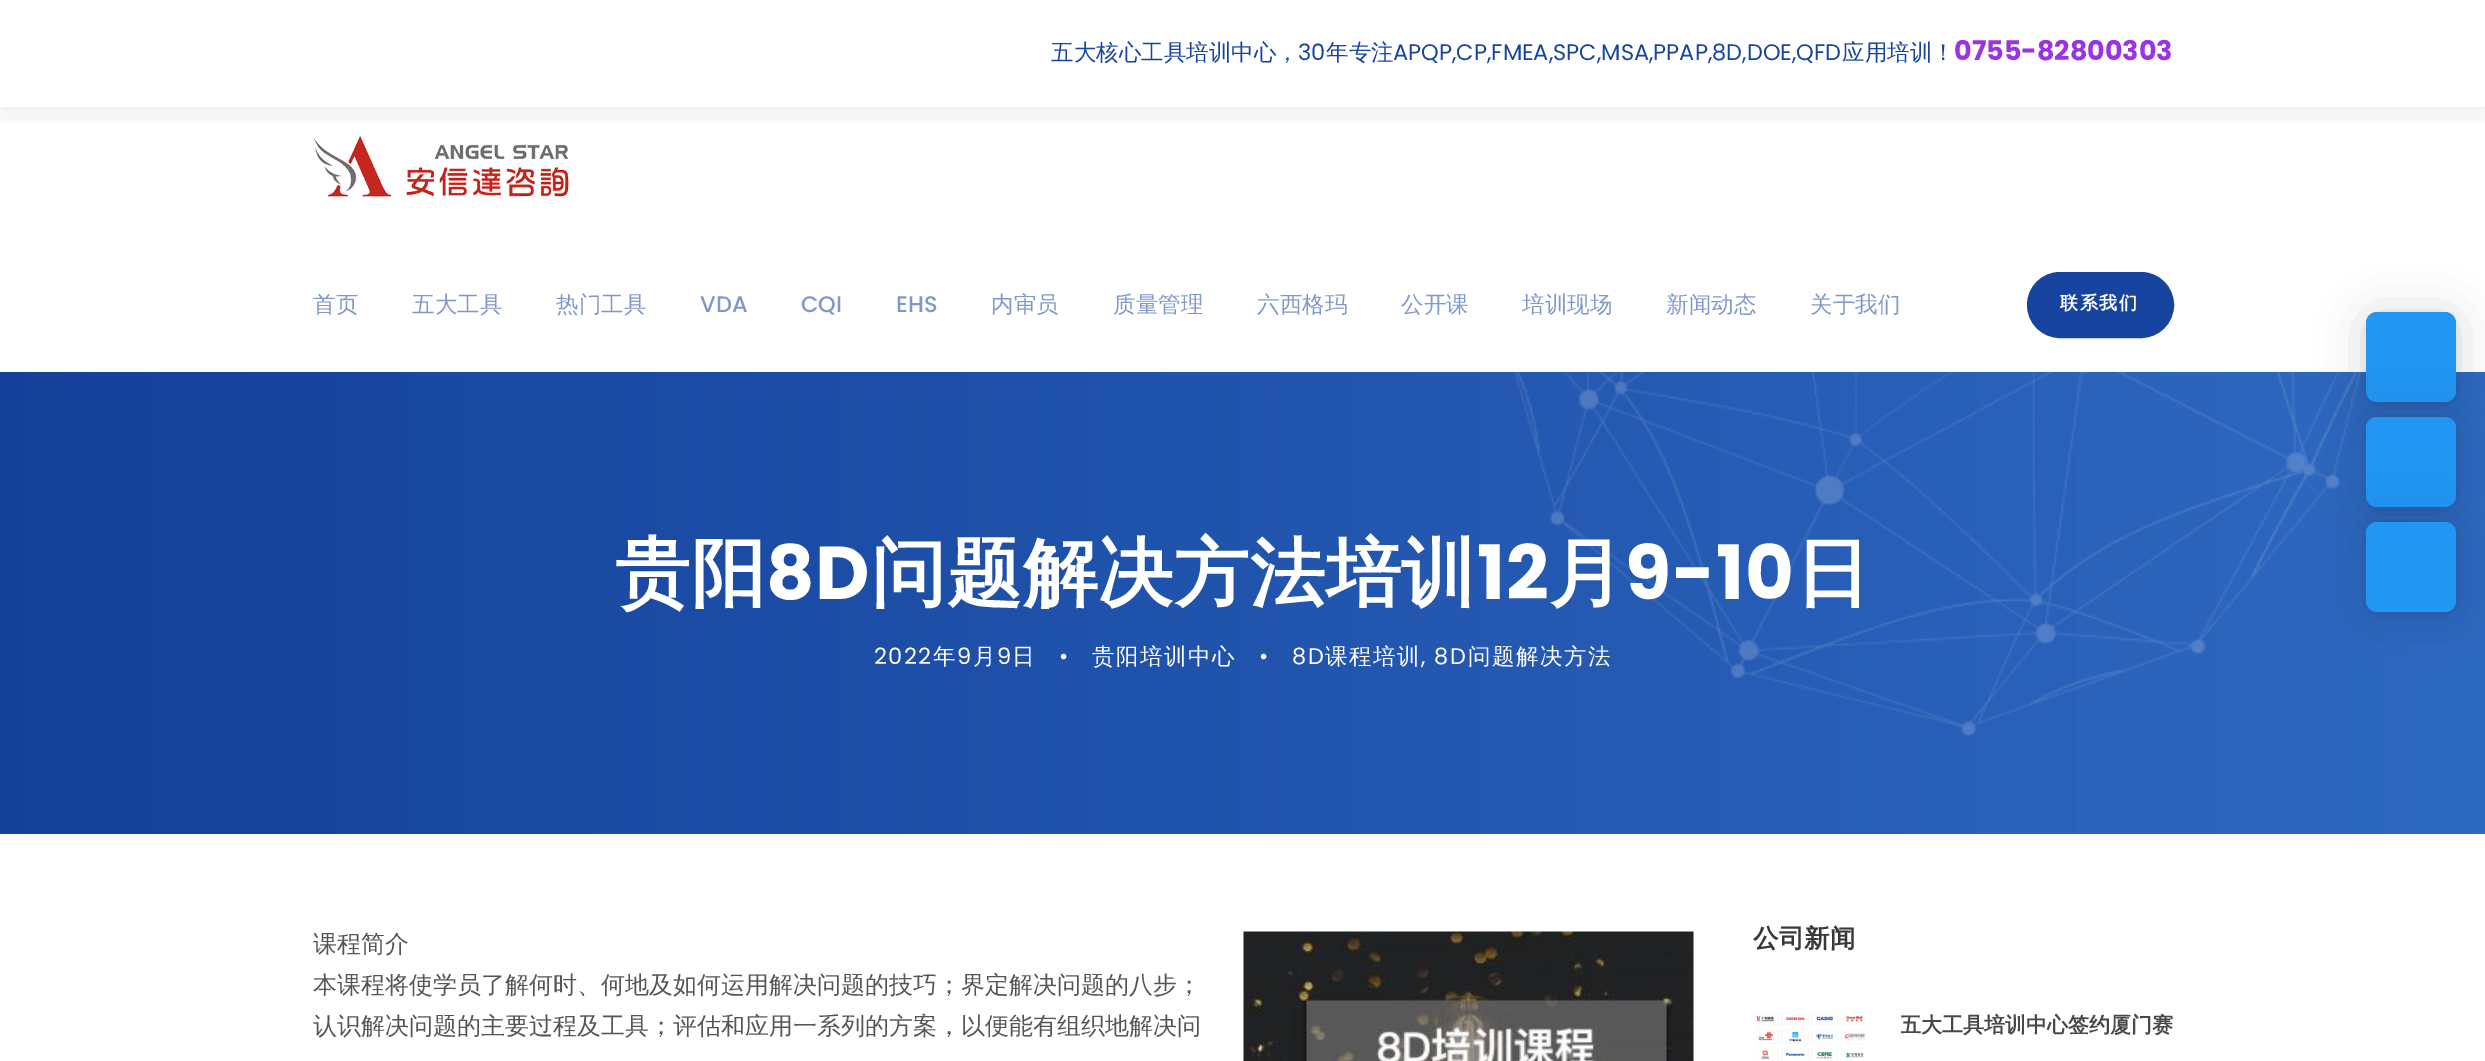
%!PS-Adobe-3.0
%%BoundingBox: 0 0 2485 1061
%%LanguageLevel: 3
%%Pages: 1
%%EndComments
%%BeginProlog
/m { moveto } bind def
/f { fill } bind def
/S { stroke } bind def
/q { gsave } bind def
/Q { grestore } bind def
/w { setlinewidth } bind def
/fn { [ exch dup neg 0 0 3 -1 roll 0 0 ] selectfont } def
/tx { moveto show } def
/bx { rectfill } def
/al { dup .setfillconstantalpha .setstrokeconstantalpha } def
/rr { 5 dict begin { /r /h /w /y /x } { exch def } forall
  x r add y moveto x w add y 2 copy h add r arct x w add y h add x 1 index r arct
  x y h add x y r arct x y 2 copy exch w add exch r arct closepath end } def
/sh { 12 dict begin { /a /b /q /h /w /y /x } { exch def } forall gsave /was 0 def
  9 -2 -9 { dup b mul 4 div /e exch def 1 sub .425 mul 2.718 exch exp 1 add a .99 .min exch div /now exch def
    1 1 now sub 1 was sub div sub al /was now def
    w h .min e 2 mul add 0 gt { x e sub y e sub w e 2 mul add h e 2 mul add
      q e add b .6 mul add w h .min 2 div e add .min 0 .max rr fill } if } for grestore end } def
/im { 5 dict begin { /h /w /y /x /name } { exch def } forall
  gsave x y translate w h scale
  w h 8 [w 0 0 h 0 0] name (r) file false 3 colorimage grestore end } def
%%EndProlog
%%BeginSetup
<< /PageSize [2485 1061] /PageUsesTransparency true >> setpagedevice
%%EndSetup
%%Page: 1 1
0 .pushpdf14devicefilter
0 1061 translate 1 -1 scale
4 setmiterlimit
1 setgray
0 0 2485 1061 bx
(image0.raw) 313 136 256 61 im
q
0 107 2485 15 rectclip
0.039 setgray
0 0 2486 107 0 18 0.1 sh
Q
0 106 2485 1 bx
/WenQuanYiZenHei-Medium 22.5 fn
0.09 0.267 0.62 setrgbcolor
(五大核心工具培训中心，) 1051 60 tx
/Poppins-Regular 22.5 fn
(30) 1298 60 tx
/WenQuanYiZenHei-Medium 22.5 fn
(年专注) 1326 60 tx
/Poppins-Regular 22.5 fn
(APQP,CP,FMEA,SPC,MSA,PPAP,8D,DOE,QFD) 1393 60 tx
/WenQuanYiZenHei-Medium 22.5 fn
(应用培训！) 1842 60 tx
/Poppins-Bold 27 fn
0.6 0.2 0.898 setrgbcolor
(0755-82800303) 1954 60 tx
/WenQuanYiZenHei-Medium 22.5 fn
0.502 0.596 0.788 setrgbcolor
(首页) 313 312 tx
(五大工具) 412 312 tx
(热门工具) 556 312 tx
/Poppins-Medium 22.5 fn
(VDA) 700 312 tx
(CQI) 801 312 tx
(EHS) 896 312 tx
/WenQuanYiZenHei-Medium 22.5 fn
(内审员) 991 312 tx
(质量管理) 1113 312 tx
(六西格玛) 1257 312 tx
(公开课) 1401 312 tx
(培训现场) 1522 312 tx
(新闻动态) 1666 312 tx
(关于我们) 1810 312 tx
0.09 0.267 0.62 setrgbcolor
2028.5 273.5 144 63 31.5 rr q f Q
3 w
S
/WenQuanYiZenHei-Bold 18 fn
1 setgray
2060 309 m 1.5 0 (联系我们) ashow
(image1.raw) 0 372 2485 462 im
/WenQuanYiZenHei-Bold 75 fn
615 599 m 0.75 0 (贵阳) ashow
/Poppins-Bold 75 fn
766 599 m 0.75 0 (8D) ashow
/WenQuanYiZenHei-Bold 75 fn
871 599 m 0.75 0 (问题解决方法培训) ashow
/Poppins-Bold 75 fn
1477 599 m 0.75 0 (12) ashow
/WenQuanYiZenHei-Bold 75 fn
1549 599 m 0.75 0 (月) ashow
/Poppins-Bold 75 fn
1625 599 m 0.75 0 (9-10) ashow
/WenQuanYiZenHei-Bold 75 fn
1795 599 m 0.75 0 (日) ashow
/Poppins-Regular 22.5 fn
874 664 m 1.5 0 (2022) ashow
/WenQuanYiZenHei-Medium 22.5 fn
933 664 m 1.5 0 (年) ashow
/Poppins-Regular 22.5 fn
957 664 m 1.5 0 (9) ashow
/WenQuanYiZenHei-Medium 22.5 fn
973 664 m 1.5 0 (月) ashow
/Poppins-Regular 22.5 fn
997 664 m 1.5 0 (9) ashow
/WenQuanYiZenHei-Medium 22.5 fn
1012 664 m 1.5 0 (日) ashow
/Poppins-Regular 22.5 fn
1059 664 m 1.5 0 (•) ashow
/WenQuanYiZenHei-Medium 22.5 fn
1092 664 m 1.5 0 (贵阳培训中心) ashow
/Poppins-Regular 22.5 fn
1259 664 m 1.5 0 (•) ashow
1292 664 m 1.5 0 (8D) ashow
/WenQuanYiZenHei-Medium 22.5 fn
1325 664 m 1.5 0 (课程培训) ashow
/Poppins-Regular 22.5 fn
1421 664 m 1.5 0 (, 8D) ashow
/WenQuanYiZenHei-Medium 22.5 fn
1468 664 m 1.5 0 (问题解决方法) ashow
/WenQuanYiZenHei-Medium 24 fn
0.333 setgray
(课程简介) 313 952 tx
(image2.raw) 1243 931 451 130 im
(本课程将使学员了解何时、何地及如何运用解决问题的技巧；界定解决问题的八步；) 313 993 tx
(认识解决问题的主要过程及工具；评估和应用一系列的方案，以便能有组织地解决问) 313 1034 tx
/WenQuanYiZenHei-Bold 25.5 fn
0.22 setgray
(公司新闻) 1753 947 tx
(image3.raw) 1754 1012 112 49 im
q
1901 1008 273 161 rectclip
/WenQuanYiZenHei-Bold 21 fn
0.282 setgray
(五大工具培训中心签约厦门赛) 1900 1032 tx
Q
0 setgray
2366 315 90 90 11 24 0.16 sh
2366 314 90 90 11 4.5 0.06 sh
0.129 0.588 0.953 setrgbcolor
2366 312 90 90 11 rr f
0 setgray
2366 420 90 90 11 24 0.16 sh
2366 419 90 90 11 4.5 0.06 sh
0.129 0.588 0.953 setrgbcolor
2366 417 90 90 11 rr f
0 setgray
2366 525 90 90 11 24 0.16 sh
2366 524 90 90 11 4.5 0.06 sh
0.129 0.588 0.953 setrgbcolor
2366 522 90 90 11 rr f
.poppdf14devicefilter showpage
%%EOF
